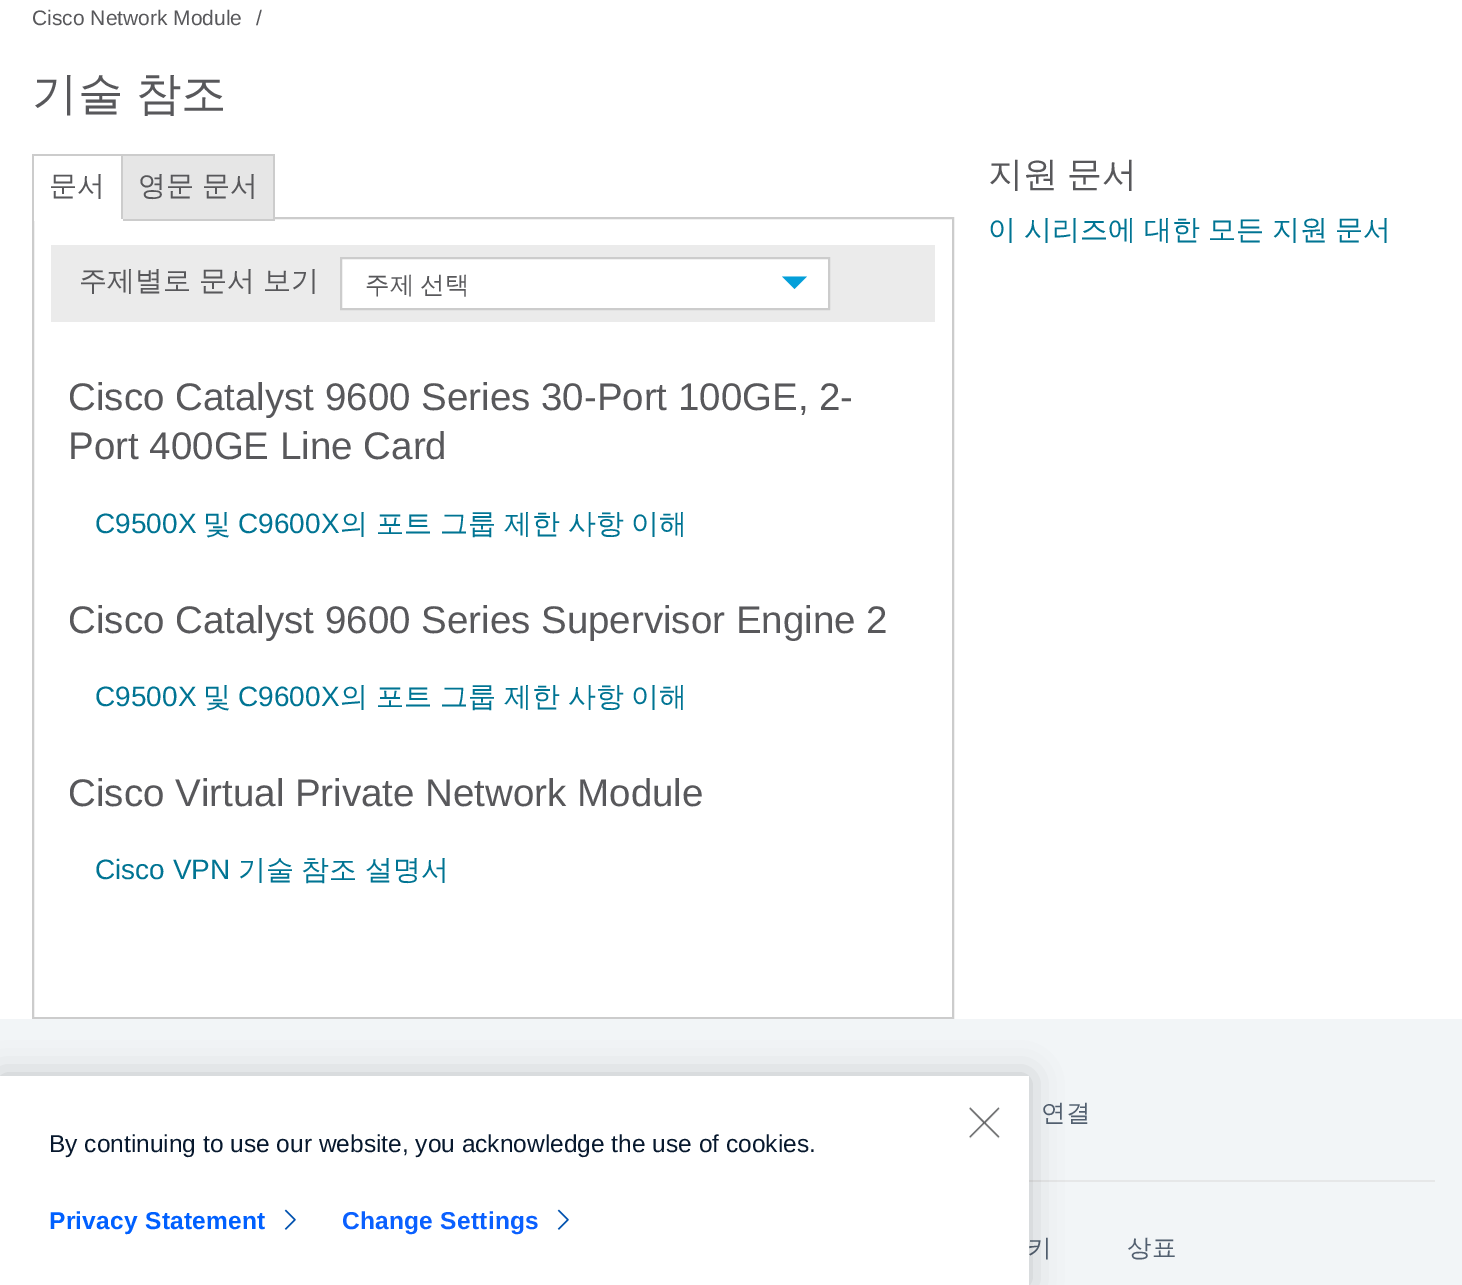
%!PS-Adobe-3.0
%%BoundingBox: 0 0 1462 1285
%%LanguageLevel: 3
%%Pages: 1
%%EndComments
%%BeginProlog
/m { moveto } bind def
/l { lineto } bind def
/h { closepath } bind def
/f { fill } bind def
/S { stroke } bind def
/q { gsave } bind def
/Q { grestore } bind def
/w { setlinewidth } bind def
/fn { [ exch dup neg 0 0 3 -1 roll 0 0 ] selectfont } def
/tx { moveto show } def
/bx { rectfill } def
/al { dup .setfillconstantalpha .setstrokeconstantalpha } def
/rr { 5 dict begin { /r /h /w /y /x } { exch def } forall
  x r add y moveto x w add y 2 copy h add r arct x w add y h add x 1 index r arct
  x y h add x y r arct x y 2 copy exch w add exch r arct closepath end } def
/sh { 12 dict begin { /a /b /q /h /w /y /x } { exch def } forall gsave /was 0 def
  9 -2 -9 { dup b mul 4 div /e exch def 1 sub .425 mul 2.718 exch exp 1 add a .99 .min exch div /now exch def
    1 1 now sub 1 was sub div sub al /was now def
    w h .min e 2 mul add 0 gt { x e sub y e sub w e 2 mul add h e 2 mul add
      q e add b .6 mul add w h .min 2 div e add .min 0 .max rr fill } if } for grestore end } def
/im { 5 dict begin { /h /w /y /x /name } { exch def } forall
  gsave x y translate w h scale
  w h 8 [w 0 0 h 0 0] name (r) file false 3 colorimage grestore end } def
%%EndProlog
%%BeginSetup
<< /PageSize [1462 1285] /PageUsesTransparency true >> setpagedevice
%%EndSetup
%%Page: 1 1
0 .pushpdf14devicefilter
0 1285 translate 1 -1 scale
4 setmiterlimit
1 setgray
0 0 1462 1285 bx
/LiberationSans-Regular 21 fn
0.345 0.345 0.357 setrgbcolor
(Cisco Network Module) 32 25 tx
(/) 256 25 tx
/WenQuanYiZenHei-Medium 45.5 fn
32 109 m -1 0 32 (기술 참조) widthshow
0.8 setgray
2 w
33 218 920 800 rectstroke
1 setgray
34 217 87 2 bx
0.8 setgray
32 154 243 2 bx
121 154 2 67 bx
1 setgray
32 219 91 2 bx
0.8 setgray
32 154 2 67 bx
/WenQuanYiZenHei-Medium 28 fn
0.345 0.345 0.357 setrgbcolor
(문서) 49 195 tx
0.902 setgray
123 156 150 63 bx
0.8 setgray
273 154 2 67 bx
123 219 152 2 bx
0.345 0.345 0.357 setrgbcolor
138 195 m -0.5 0 32 (영문 문서) widthshow
0.922 setgray
51 245 884 77 bx
0.345 0.345 0.357 setrgbcolor
79 290 m -0.5 0 32 (주제별로 문서 보기) widthshow
1 setgray
341 258 m 829 258 l 829 309 l 341 309 l h q f Q
0.8 setgray
S
/WenQuanYiZenHei-Medium 24.5 fn
0.345 0.345 0.357 setrgbcolor
365 293 m -1 0 32 (주제 선택) widthshow
0.016 0.624 0.851 setrgbcolor
782 276.5 m 807 276.5 l 794.5 289 l h f
/LiberationSans-Regular 38.5 fn
0.345 0.345 0.357 setrgbcolor
(Cisco Catalyst 9600 Series 30-Port 100GE, 2-) 68 410 tx
(Port 400GE Line Card) 68 459 tx
/LiberationSans-Regular 28 fn
0 0.455 0.576 setrgbcolor
(C9500X) 95 533 tx
/WenQuanYiZenHei-Medium 28 fn
(및) 203 533 tx
/LiberationSans-Regular 28 fn
(C9600X) 238 533 tx
/WenQuanYiZenHei-Medium 28 fn
340 533 m -0.5 0 32 (의 포트 그룹 제한 사항 이해) widthshow
/LiberationSans-Regular 38.5 fn
0.345 0.345 0.357 setrgbcolor
(Cisco Catalyst 9600 Series Supervisor Engine 2) 68 633 tx
/LiberationSans-Regular 28 fn
0 0.455 0.576 setrgbcolor
(C9500X) 95 706 tx
/WenQuanYiZenHei-Medium 28 fn
(및) 203 706 tx
/LiberationSans-Regular 28 fn
(C9600X) 238 706 tx
/WenQuanYiZenHei-Medium 28 fn
340 706 m -0.5 0 32 (의 포트 그룹 제한 사항 이해) widthshow
/LiberationSans-Regular 38.5 fn
0.345 0.345 0.357 setrgbcolor
(Cisco Virtual Private Network Module) 68 806 tx
/LiberationSans-Regular 28 fn
0 0.455 0.576 setrgbcolor
(Cisco VPN) 95 879 tx
/WenQuanYiZenHei-Medium 28 fn
(기술) 238 879 tx
(참조) 301 879 tx
(설명서) 365 879 tx
/WenQuanYiZenHei-Medium 35 fn
0.345 0.345 0.357 setrgbcolor
988 186 m -1 0 32 (지원 문서) widthshow
/WenQuanYiZenHei-Medium 28 fn
0 0.455 0.576 setrgbcolor
988 239 m -0.5 0 32 (이 시리즈에 대한 모든 지원 문서) widthshow
0.949 0.961 0.969 setrgbcolor
0 1019 1462 266 bx
/WenQuanYiZenHei-Medium 24.5 fn
0.325 0.376 0.439 setrgbcolor
1041 1121 m -1 0 32 (연결) widthshow
0.902 0.906 0.91 setrgbcolor
1029 1180 406 2 bx
0.325 0.376 0.439 setrgbcolor
(키) 1027 1256 tx
(상표) 1127 1256 tx
0 setgray
0 1076 1029 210 0 16 0.2 sh
1 setgray
0 1076 1029 209 bx
(image0.raw) 969 1107 31 32 im
/LiberationSans-Regular 24.5 fn
0.027 0.094 0.176 setrgbcolor
(By continuing to use our website, you acknowledge the use of cookies.) 49 1152 tx
/LiberationSans-Bold 24.5 fn
0 0.376 1 setrgbcolor
49 1229 m 0.25 0 (Privacy Statement) ashow
(image1.raw) 284 1209 12 21 im
0.039 0.376 1 setrgbcolor
342 1229 m 0.25 0 (Change Settings) ashow
(image1.raw) 557 1209 12 21 im
.poppdf14devicefilter showpage
%%EOF
